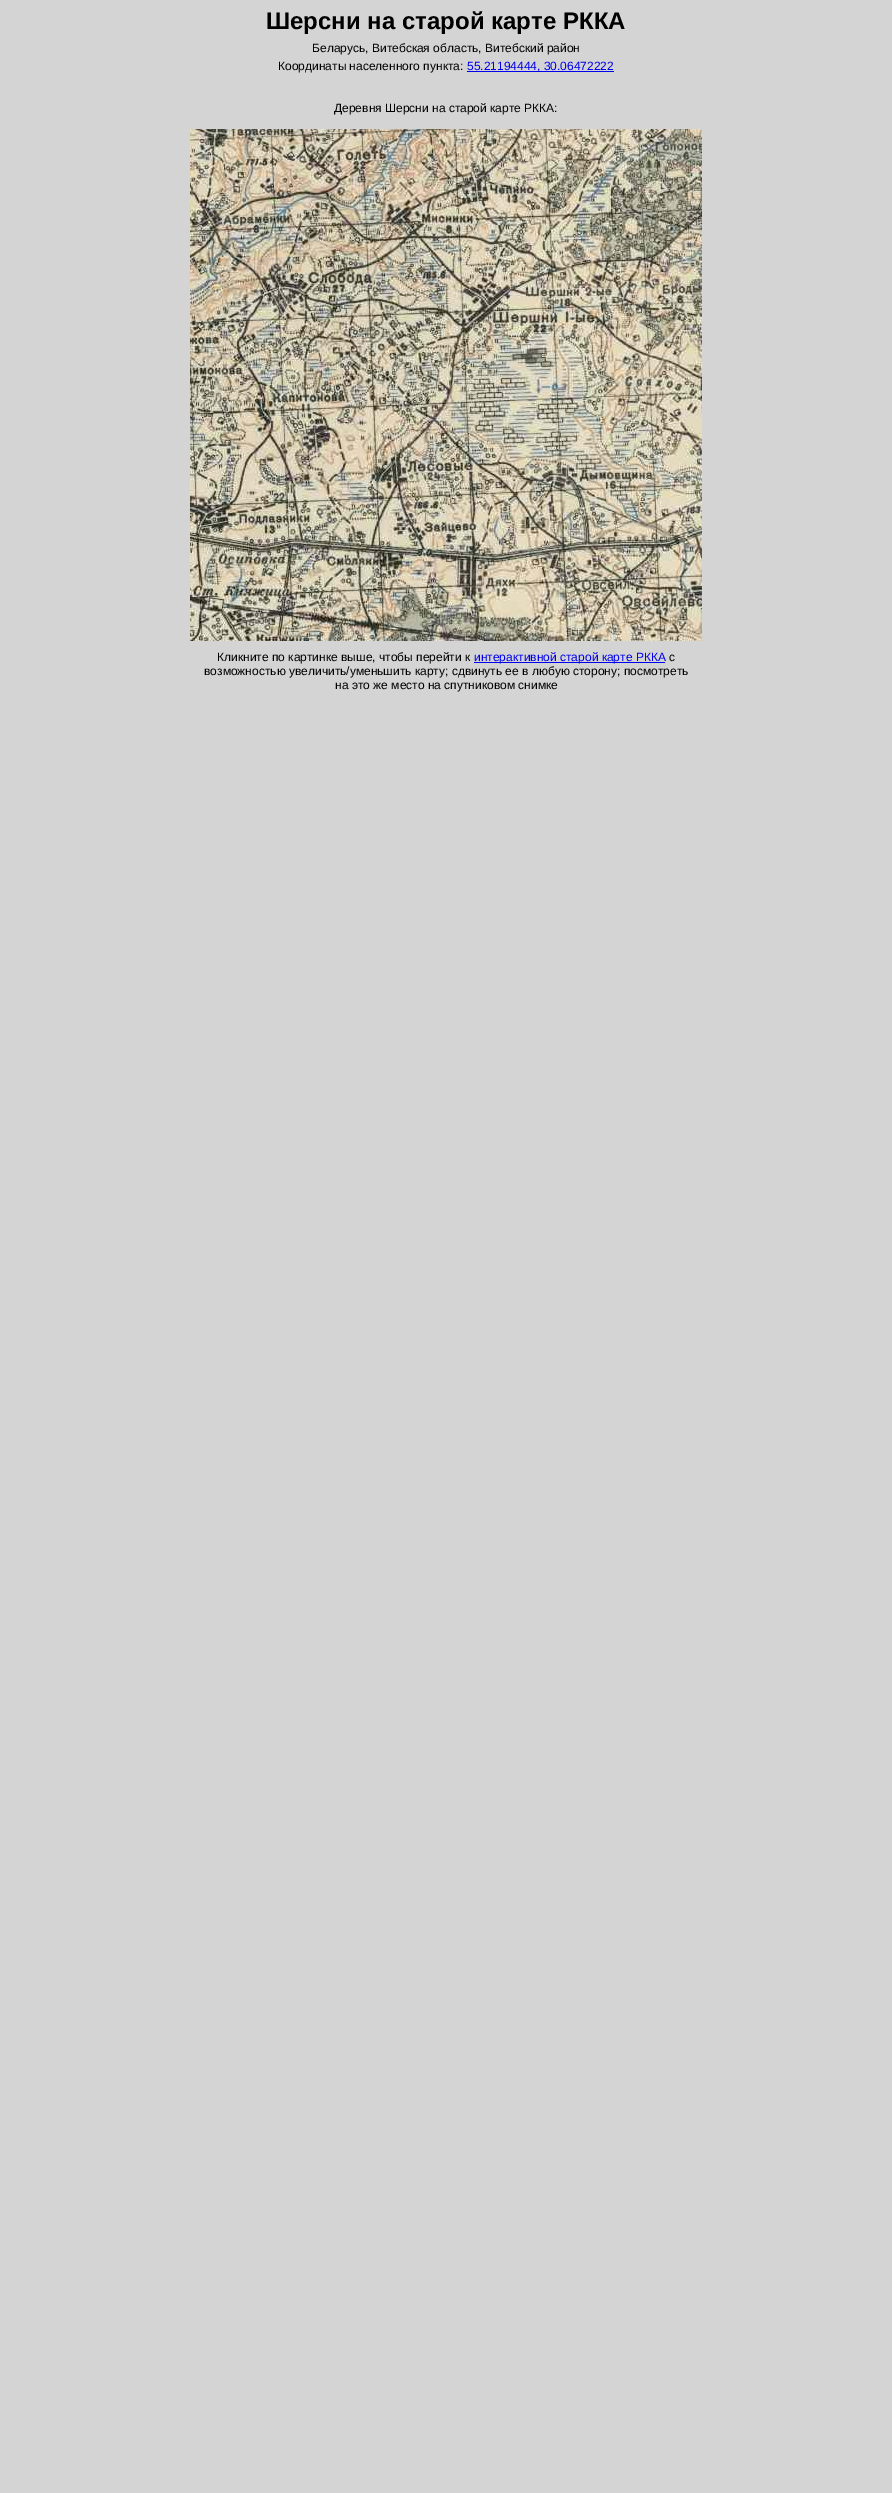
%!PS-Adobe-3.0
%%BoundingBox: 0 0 892 2493
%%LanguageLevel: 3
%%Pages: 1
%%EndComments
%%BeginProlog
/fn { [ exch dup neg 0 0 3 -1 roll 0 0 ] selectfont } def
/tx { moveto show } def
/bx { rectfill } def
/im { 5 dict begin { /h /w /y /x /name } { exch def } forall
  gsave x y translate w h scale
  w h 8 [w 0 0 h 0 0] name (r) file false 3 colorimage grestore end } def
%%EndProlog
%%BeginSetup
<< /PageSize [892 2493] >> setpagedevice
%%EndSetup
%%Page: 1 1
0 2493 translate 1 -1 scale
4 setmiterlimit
0.831 setgray
0 0 892 2493 bx
/LiberationSans-Bold 24 fn
0 setgray
(Шерсни на старой карте РККА) 266 29 tx
/LiberationSans-Regular 12 fn
(Беларусь, Витебская область, Витебский район) 312 52 tx
(Координаты населенного пункта:) 278 70 tx
0 0 0.933 setrgbcolor
467 71 147 1 bx
(55.21194444, 30.06472222) 467 70 tx
0 setgray
(Деревня Шерсни на старой карте РККА:) 334 112 tx
(image0.raw) 190 129 256 256 im
(image1.raw) 446 129 256 256 im
(image2.raw) 190 385 256 256 im
(image3.raw) 446 385 256 256 im
(Кликните по картинке выше, чтобы перейти к) 217 661 tx
0 0 0.933 setrgbcolor
474 662 191 1 bx
(интерактивной старой карте РККА) 474 661 tx
0 setgray
(с) 669 661 tx
(возможностью увеличить/уменьшить карту; сдвинуть ее в любую сторону; посмотреть) 204 675 tx
(на это же место на спутниковом снимке) 335 689 tx
showpage
%%EOF
